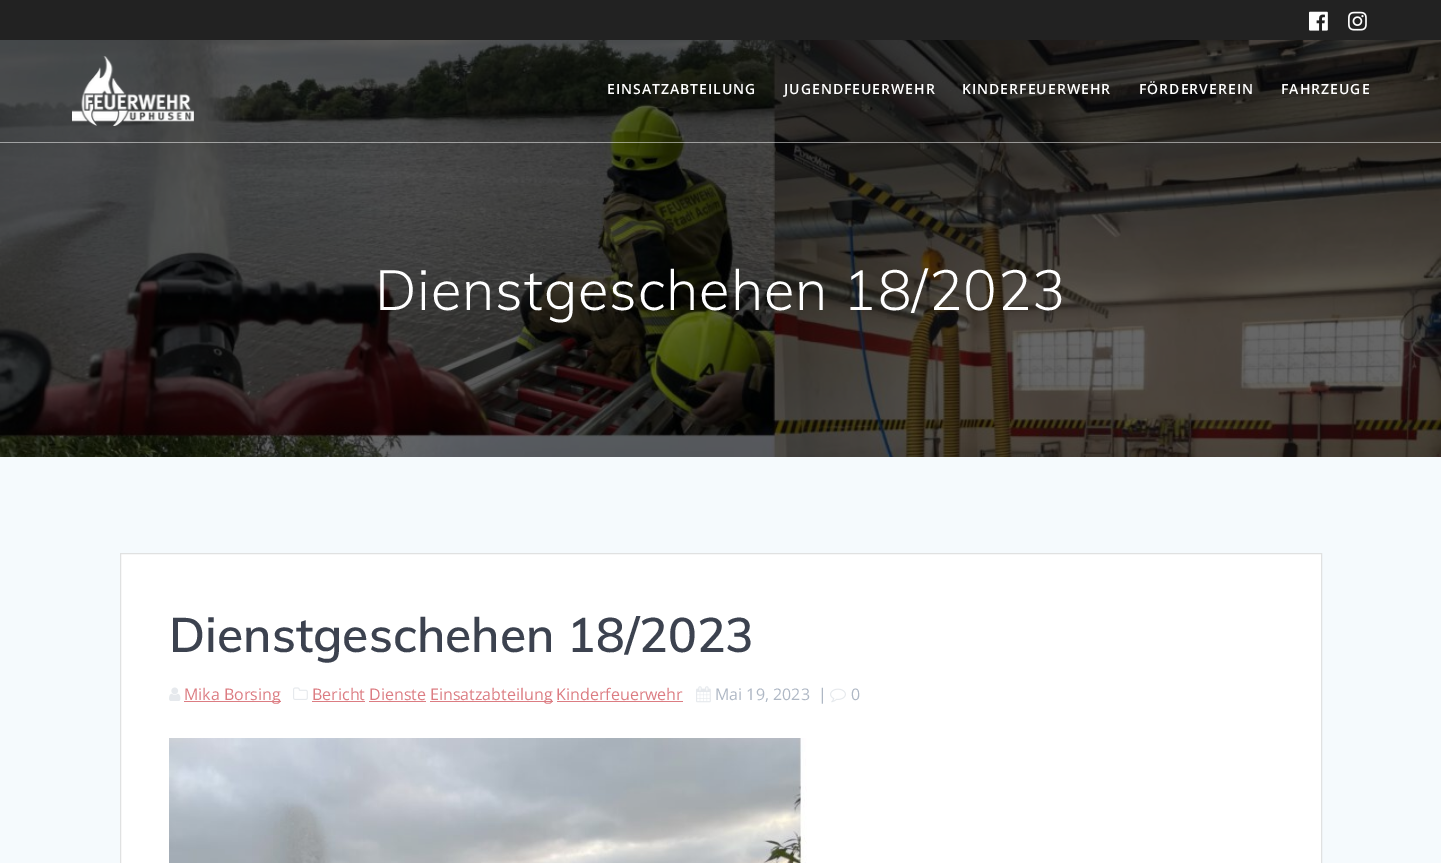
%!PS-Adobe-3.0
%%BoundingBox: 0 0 1441 863
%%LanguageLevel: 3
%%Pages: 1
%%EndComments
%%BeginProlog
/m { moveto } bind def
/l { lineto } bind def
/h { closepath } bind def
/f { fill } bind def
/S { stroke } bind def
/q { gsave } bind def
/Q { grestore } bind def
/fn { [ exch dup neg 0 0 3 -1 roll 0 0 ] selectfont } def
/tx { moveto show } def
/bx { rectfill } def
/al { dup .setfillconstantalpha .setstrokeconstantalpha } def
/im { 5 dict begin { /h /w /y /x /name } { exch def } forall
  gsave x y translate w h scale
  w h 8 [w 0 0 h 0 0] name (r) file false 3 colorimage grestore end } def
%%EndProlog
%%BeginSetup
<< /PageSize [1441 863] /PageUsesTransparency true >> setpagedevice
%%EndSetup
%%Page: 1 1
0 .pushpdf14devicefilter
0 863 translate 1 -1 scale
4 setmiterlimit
1 setgray
0 0 1441 863 bx
0.133 setgray
0 0 1441 40 bx
(image0.raw) 1309 11 19 20 im
(image1.raw) 1348 11 19 20 im
(image3.raw) 0 40 1441 417 im
0.5 al
1 setgray
0 142 1441 1 bx
1 al
(image2.raw) 72 56 122 70 im
/OpenSans-SemiBold 14 fn
607 94 m 1 0 (EINSATZABTEILUNG) ashow
784 94 m 1 0 (JUGENDFEUERWEHR) ashow
962 94 m 1 0 (KINDERFEUERWEHR) ashow
1139 94 m 1 0 (FÖRDERVEREIN) ashow
1281 94 m 1 0 (FAHRZEUGE) ashow
(image4.raw) 887 303 13 16 im
/Muli-Light 56 fn
375 310 m 0.9 0 (Dienstgeschehen 18/2023) ashow
0.961 0.98 0.992 setrgbcolor
0 457 1441 406 bx
1 setgray
120.5 553.5 m 1321.5 553.5 l 1321.5 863.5 l 120.5 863.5 l h q f Q
0.878 0.882 0.882 setrgbcolor
S
/Muli-SemiBold 48 fn
0.235 0.259 0.31 setrgbcolor
(Dienstgeschehen 18/2023) 169 652 tx
(image5.raw) 169 687 12 14 im
0.863 0.486 0.51 setrgbcolor
184 701 97 1 bx
/OpenSans-Regular 16 fn
(Mika Borsing) 184 700 tx
(image6.raw) 293 687 15 13 im
(Bericht Dienste) 312 700 tx
312 701 53 1 bx
430 701 123 1 bx
(Einsatzabteilung Kinderfeuerwehr) 430 700 tx
(image7.raw) 696 686 15 17 im
0.682 0.718 0.769 setrgbcolor
(Mai 19, 2023) 715 700 tx
(|) 818 700 tx
(image8.raw) 830 688 16 15 im
(0) 851 700 tx
0.863 0.486 0.51 setrgbcolor
369 701 57 1 bx
557 701 126 1 bx
(image9.raw) 169 738 638 125 im
.poppdf14devicefilter showpage
%%EOF
